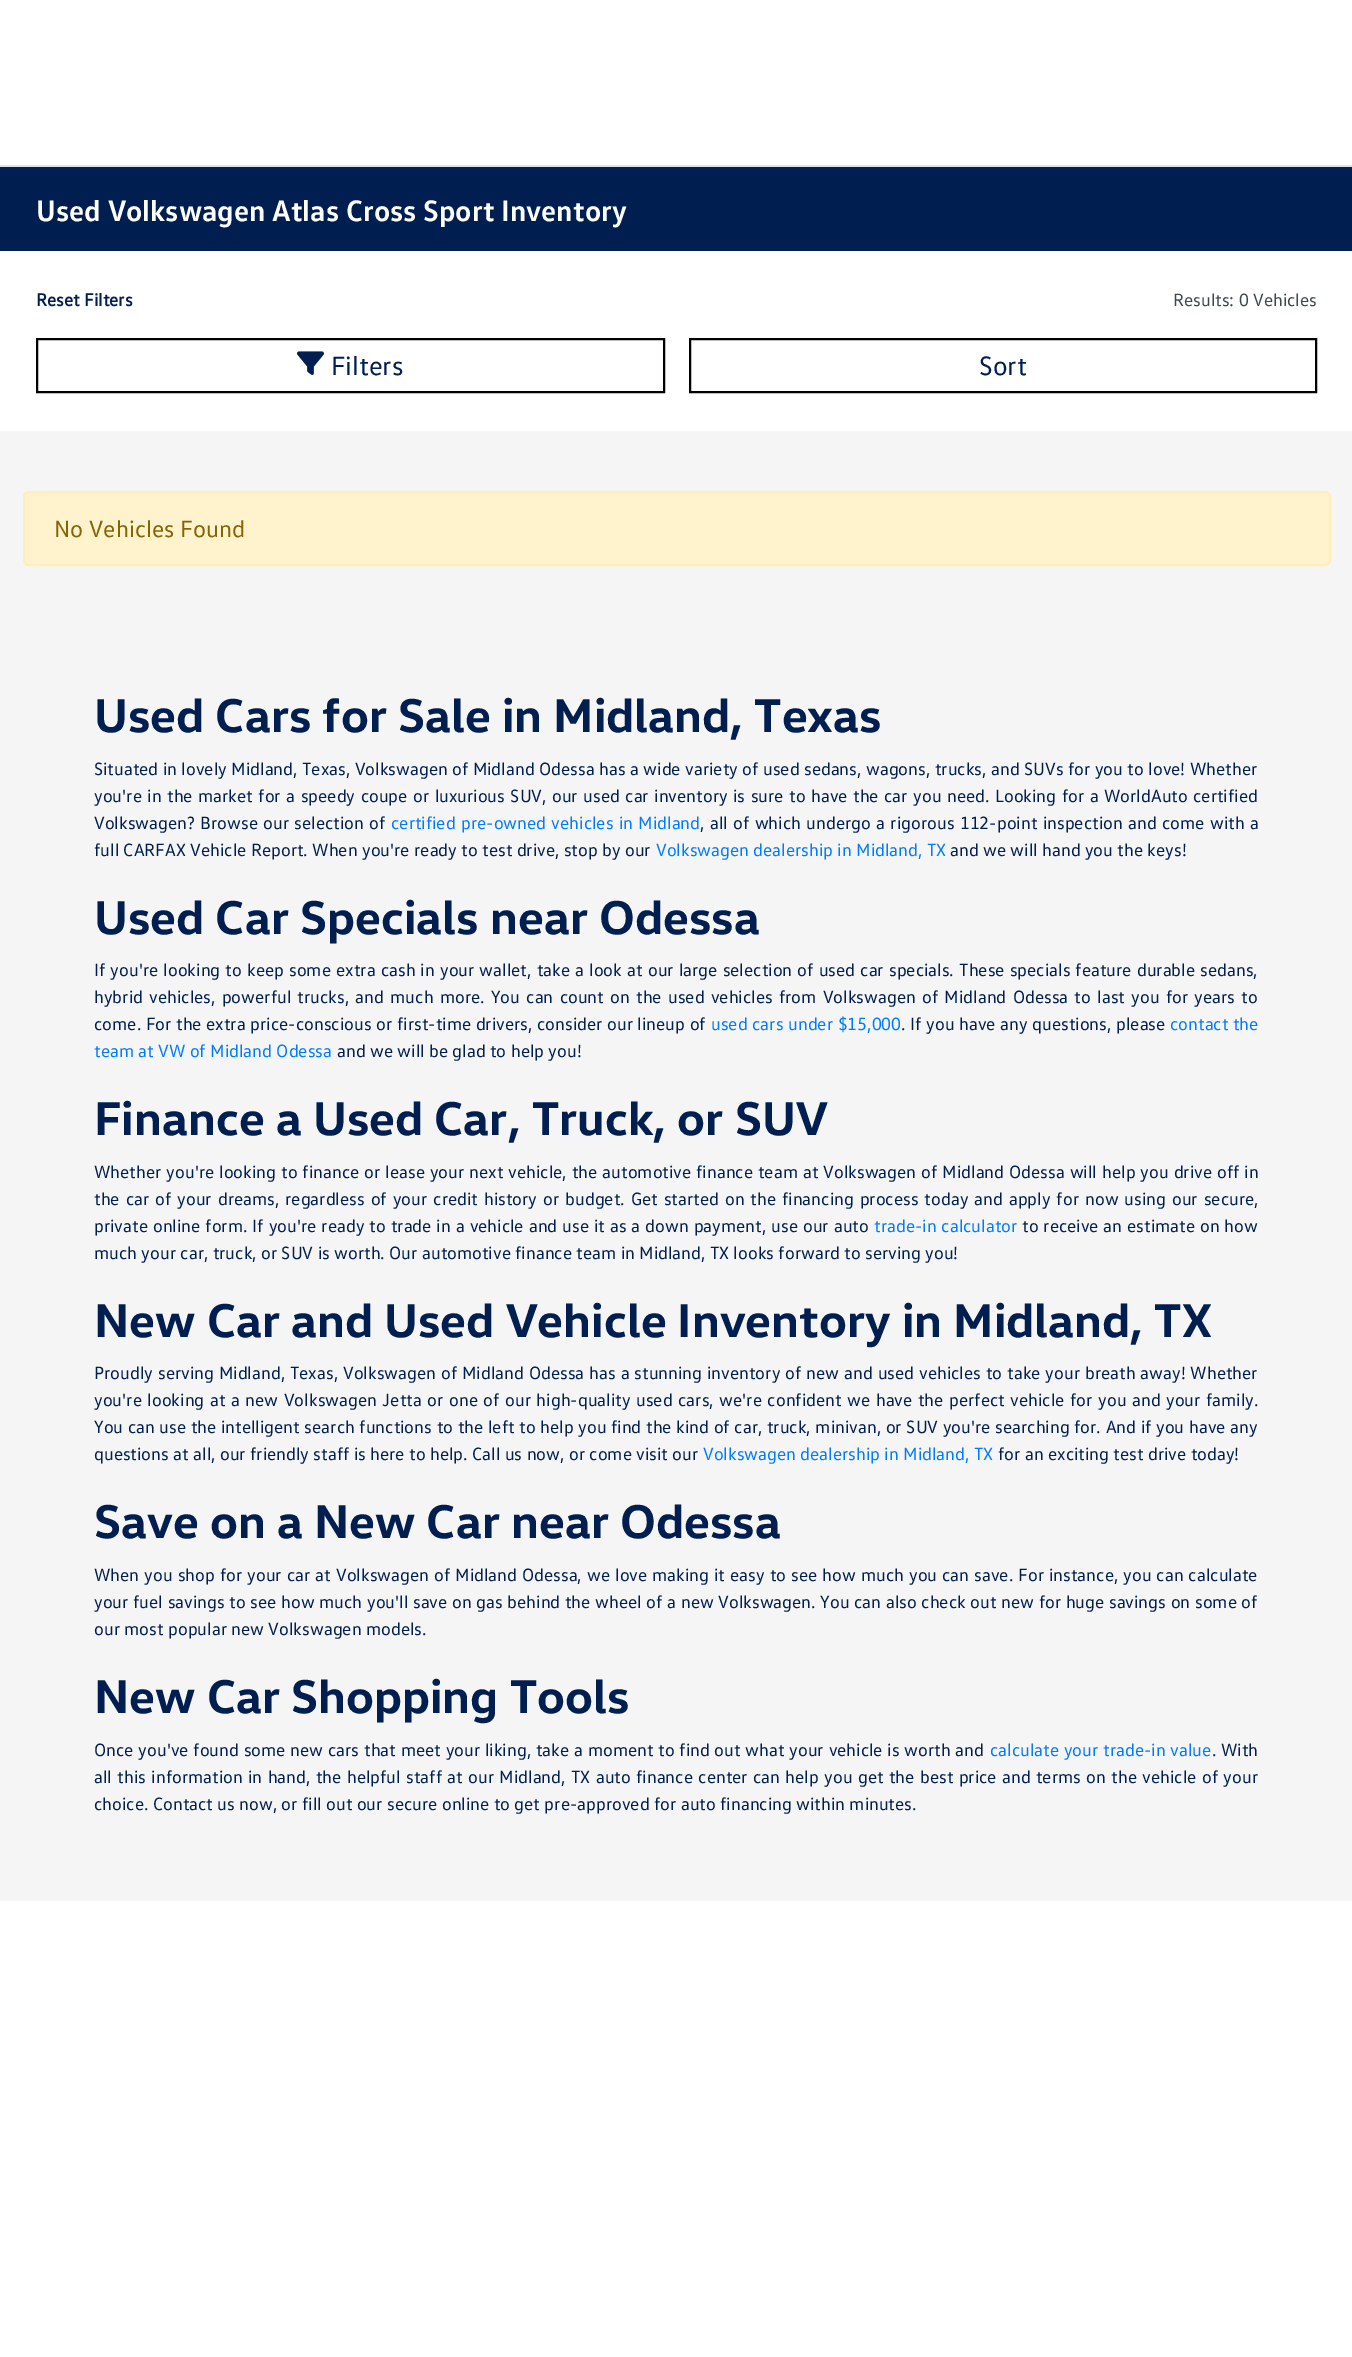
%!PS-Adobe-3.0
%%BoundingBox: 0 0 1352 2357
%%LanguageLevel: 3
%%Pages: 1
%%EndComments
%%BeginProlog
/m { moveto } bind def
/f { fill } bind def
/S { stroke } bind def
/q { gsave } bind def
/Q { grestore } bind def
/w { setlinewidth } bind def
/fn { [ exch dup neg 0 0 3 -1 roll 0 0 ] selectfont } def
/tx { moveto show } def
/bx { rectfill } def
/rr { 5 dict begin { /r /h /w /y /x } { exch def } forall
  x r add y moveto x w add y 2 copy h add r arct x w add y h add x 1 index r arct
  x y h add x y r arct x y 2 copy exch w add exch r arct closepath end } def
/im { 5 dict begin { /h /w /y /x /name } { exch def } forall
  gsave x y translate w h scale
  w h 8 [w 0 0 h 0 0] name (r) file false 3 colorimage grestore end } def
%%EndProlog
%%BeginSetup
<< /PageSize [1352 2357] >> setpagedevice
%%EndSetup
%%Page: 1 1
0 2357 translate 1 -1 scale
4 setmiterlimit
1 setgray
0 0 1352 2357 bx
0.961 setgray
0 431 1352 1470 bx
0 0.118 0.314 setrgbcolor
0 167 1352 84 bx
0.871 0.886 0.902 setrgbcolor
0 165 1352 2 bx
/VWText-Bold 30 fn
1 setgray
(Used Volkswagen Atlas Cross Sport Inventory) 36 221 tx
/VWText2-Bold 18 fn
0 0.118 0.314 setrgbcolor
(Reset Filters) 36 306 tx
/VWText-Regular 18 fn
0.235 0.282 0.302 setrgbcolor
(Results: 0 Vehicles) 1173 306 tx
0 setgray
2 w
37 339 627 53 rectstroke
(image0.raw) 297 351 27 24 im
/VWText-Regular 27 fn
0 0.118 0.314 setrgbcolor
(Filters) 331 375 tx
0 setgray
690 339 626 53 rectstroke
0 0.118 0.314 setrgbcolor
(Sort) 979 375 tx
1 0.953 0.804 setrgbcolor
24 492 1306 73 5 rr q f Q
1 0.933 0.729 setrgbcolor
S
/VWText-Regular 24 fn
0.522 0.392 0.016 setrgbcolor
(No Vehicles Found) 54 537 tx
/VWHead-Bold 48 fn
0 0.118 0.314 setrgbcolor
(Used Cars for Sale in Midland, Texas) 94 732 tx
/VWText-Regular 18 fn
94 775 m 0.1 0 32 (Situated in lovely Midland, Texas, Volkswagen of Midland Odessa has a wide variety of used sedans, wagons, trucks, and SUVs for you to love! Whether) widthshow
94 802 m 1.1 0 32 (you're in the market for a speedy coupe or luxurious SUV, our used car inventory is sure to have the car you need. Looking for a WorldAuto certified) widthshow
94 829 m 1 0 32 (Volkswagen? Browse our selection of) widthshow
0 0.482 1 setrgbcolor
391 829 m 1 0 32 (certified pre-owned vehicles in Midland) widthshow
0 0.118 0.314 setrgbcolor
700 829 m 1 0 32 (, all of which undergo a rigorous 112-point inspection and come with a) widthshow
(full CARFAX Vehicle Report. When you're ready to test drive, stop by our) 94 856 tx
0 0.482 1 setrgbcolor
(Volkswagen dealership in Midland, TX) 656 856 tx
0 0.118 0.314 setrgbcolor
(and we will hand you the keys!) 950 856 tx
/VWHead-Bold 48 fn
(Used Car Specials near Odessa) 94 934 tx
/VWText-Regular 18 fn
94 976 m 0.75 0 32 (If you're looking to keep some extra cash in your wallet, take a look at our large selection of used car specials. These specials feature durable sedans,) widthshow
94 1003 m 1.9 0 32 (hybrid vehicles, powerful trucks, and much more. You can count on the used vehicles from Volkswagen of Midland Odessa to last you for years to) widthshow
94 1030 m 0.25 0 32 (come. For the extra price-conscious or first-time drivers, consider our lineup of) widthshow
0 0.482 1 setrgbcolor
711 1030 m 0.25 0 32 (used cars under $15,000) widthshow
0 0.118 0.314 setrgbcolor
901 1030 m 0.25 0 32 (. If you have any questions, please) widthshow
0 0.482 1 setrgbcolor
(contact the) 1170 1030 tx
(team at VW of Midland Odessa) 94 1057 tx
0 0.118 0.314 setrgbcolor
(and we will be glad to help you!) 337 1057 tx
/VWHead-Bold 48 fn
(Finance a Used Car, Truck, or SUV) 94 1135 tx
/VWText-Regular 18 fn
94 1178 m 0.6 0 32 (Whether you're looking to finance or lease your next vehicle, the automotive finance team at Volkswagen of Midland Odessa will help you drive off in) widthshow
94 1205 m 1.6 0 32 (the car of your dreams, regardless of your credit history or budget. Get started on the financing process today and apply for) widthshow
1085 1205 m 1.6 0 32 (now using our secure,) widthshow
94 1232 m 0.6 0 32 (private online form. If you're ready to trade in a vehicle and use it as a down payment, use our auto) widthshow
0 0.482 1 setrgbcolor
874 1232 m 0.5 0 32 (trade-in calculator) widthshow
0 0.118 0.314 setrgbcolor
1022 1232 m 0.5 0 32 (to receive an estimate on how) widthshow
(much your car, truck, or SUV is worth. Our automotive finance team in Midland, TX looks forward to serving you!) 94 1259 tx
/VWHead-Bold 48 fn
(New Car and Used Vehicle Inventory in Midland, TX) 94 1337 tx
/VWText-Regular 18 fn
94 1379 m 0.55 0 32 (Proudly serving Midland, Texas, Volkswagen of Midland Odessa has a stunning inventory of new and used vehicles to take your breath away! Whether) widthshow
94 1406 m 1.2 0 32 (you're looking at a new Volkswagen Jetta or one of our high-quality used cars, we're confident we have the perfect vehicle for you and your family.) widthshow
94 1433 m 0.25 0 32 (You can use the intelligent search functions to the left to help you find the kind of car, truck, minivan, or SUV you're searching for. And if you have any) widthshow
(questions at all, our friendly staff is here to help. Call us now, or come visit our) 94 1460 tx
0 0.482 1 setrgbcolor
(Volkswagen dealership in Midland, TX) 703 1460 tx
0 0.118 0.314 setrgbcolor
(for an exciting test drive today!) 998 1460 tx
/VWHead-Bold 48 fn
(Save on a New Car near Odessa) 94 1538 tx
/VWText-Regular 18 fn
94 1581 m 0.65 0 32 (When you shop for your car at Volkswagen of Midland Odessa, we love making it easy to see how much you can save. For instance, you can calculate) widthshow
94 1608 m 0.25 0 32 (your fuel savings to see how much you'll save on gas behind the wheel of a new Volkswagen. You can also check out new for huge savings on some of) widthshow
(our most popular new Volkswagen models.) 94 1635 tx
/VWHead-Bold 48 fn
(New Car Shopping Tools) 94 1713 tx
/VWText-Regular 18 fn
94 1756 m 0.4 0 32 (Once you've found some new cars that meet your liking, take a moment to find out what your vehicle is worth and) widthshow
0 0.482 1 setrgbcolor
990 1756 m 0.4 0 32 (calculate your trade-in value) widthshow
0 0.118 0.314 setrgbcolor
(. With) 1212 1756 tx
94 1783 m 1 0 32 (all this information in hand, the helpful staff at our Midland, TX auto finance center can help you get the best price and terms on the vehicle of your) widthshow
(choice. Contact us now, or fill out our secure online to get pre-approved for auto financing within minutes.) 94 1810 tx
showpage
%%EOF
